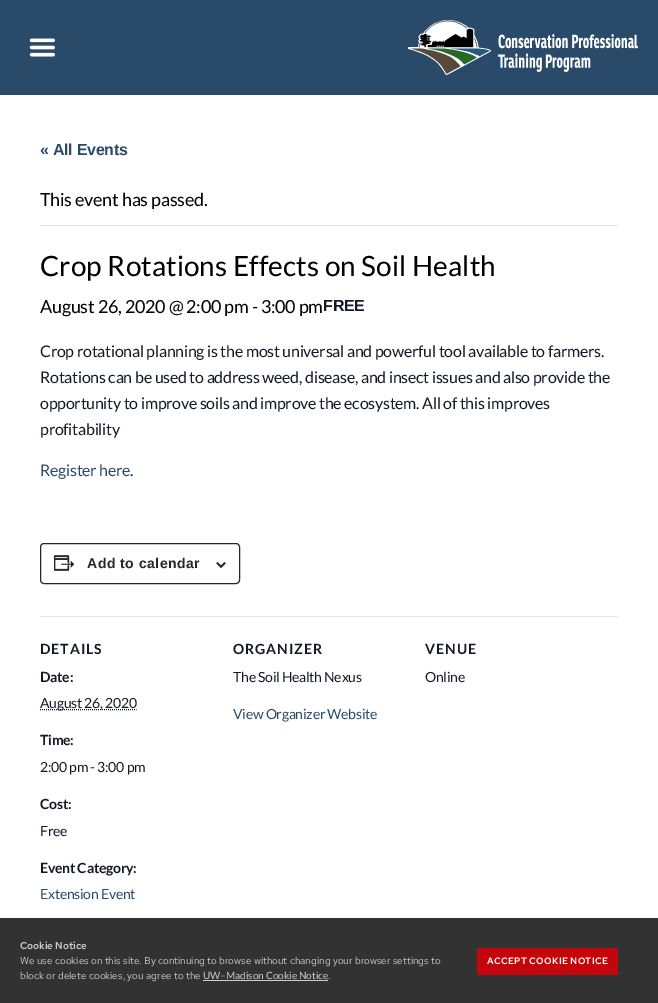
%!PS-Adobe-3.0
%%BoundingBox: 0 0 658 1003
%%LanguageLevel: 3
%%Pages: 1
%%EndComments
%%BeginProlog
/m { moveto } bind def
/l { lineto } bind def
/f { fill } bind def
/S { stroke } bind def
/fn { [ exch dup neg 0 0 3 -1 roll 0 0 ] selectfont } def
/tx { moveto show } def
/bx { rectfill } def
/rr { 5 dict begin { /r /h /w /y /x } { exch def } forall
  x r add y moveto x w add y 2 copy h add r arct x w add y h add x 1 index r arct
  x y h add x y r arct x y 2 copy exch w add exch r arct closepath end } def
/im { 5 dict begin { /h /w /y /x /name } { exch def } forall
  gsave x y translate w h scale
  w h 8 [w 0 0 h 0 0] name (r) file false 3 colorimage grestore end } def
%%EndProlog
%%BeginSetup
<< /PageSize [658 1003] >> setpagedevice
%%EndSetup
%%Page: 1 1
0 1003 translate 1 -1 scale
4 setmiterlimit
1 setgray
0 0 658 1003 bx
0.2 0.196 0.2 setrgbcolor
0 918 658 85 bx
0.165 0.29 0.412 setrgbcolor
0 0 658 95 bx
(image0.raw) 29 38 26 19 im
(image1.raw) 408 20 230 55 im
/LiberationSans-Bold 16 fn
40 155 m -0.27 0 (« All Events) ashow
0.894 setgray
40 225 578 1 bx
/Lato-Regular 18 fn
0 setgray
40 206 m -0.27 0 (This event has passed.) ashow
/Lato-Regular 28 fn
40 276 m 0.1 0 (Crop Rotations Effects on Soil Health) ashow
/Lato-Regular 18 fn
40 313 m -0.27 0 (August 26, 2020 @ 2:00 pm - 3:00 pm) ashow
/LiberationSans-Bold 16 fn
0.078 0.094 0.153 setrgbcolor
323 311 m -0.27 0 (FREE) ashow
/Lato-Regular 16 fn
40 357 m -0.27 0 (Crop rotational planning is the most universal and powerful tool available to farmers.) ashow
40 383 m -0.27 0 (Rotations can be used to address weed, disease, and insect issues and also provide the) ashow
40 409 m -0.27 0 (opportunity to improve soils and improve the ecosystem. All of this improves) ashow
40 435 m -0.27 0 (profitability) ashow
0.165 0.29 0.412 setrgbcolor
40 476 m -0.27 0 (Register here) ashow
0.078 0.094 0.153 setrgbcolor
130 476 m -0.27 0 (.) ashow
0.149 setgray
40.5 543.5 199 40 3.5 rr S
(image2.raw) 54 555 21 16 im
/LiberationSans-Bold 14 fn
87 568 m 0.5 0 (Add to calendar) ashow
(image3.raw) 216 562 10 6 im
0.894 setgray
40 616 578 1 bx
/Lato-Bold 14 fn
0.078 0.094 0.153 setrgbcolor
40 654 m 1 0 (DETAILS) ashow
40 682 m -0.27 0 (Date:) ashow
[1 1] 0 setdash
40 709.5 m 136.5 709.5 l S
/Lato-Regular 14 fn
40 708 m -0.27 0 (August 26, 2020) ashow
/Lato-Bold 14 fn
40 745 m -0.27 0 (Time:) ashow
/Lato-Regular 14 fn
40 772 m -0.27 0 (2:00 pm - 3:00 pm) ashow
/Lato-Bold 14 fn
40 809 m -0.27 0 (Cost:) ashow
/Lato-Regular 14 fn
40 836 m -0.27 0 (Free) ashow
/Lato-Bold 14 fn
40 873 m -0.27 0 (Event Category:) ashow
/Lato-Regular 14 fn
0.165 0.29 0.412 setrgbcolor
40 899 m -0.27 0 (Extension Event) ashow
/Lato-Bold 14 fn
0.078 0.094 0.153 setrgbcolor
233 654 m 1 0 (ORGANIZER) ashow
/Lato-Regular 14 fn
233 682 m -0.27 0 (The Soil Health Nexus) ashow
0.165 0.29 0.412 setrgbcolor
233 719 m -0.27 0 (View Organizer Website) ashow
/Lato-Bold 14 fn
0.078 0.094 0.153 setrgbcolor
425 654 m 1 0 (VENUE) ashow
/Lato-Regular 14 fn
425 682 m -0.27 0 (Online) ashow
/RedHatText-SemiBold 10 fn
0.8 setgray
(Cookie Notice) 20 949 tx
/RedHatText-Regular 10 fn
(We use cookies on this site. By continuing to browse without changing your browser settings to) 20 964 tx
(block or delete cookies, you agree to the) 20 979 tx
/Lato-Regular 10 fn
(UW–Madison Cookie Notice) 203 979 tx
203 980 125 1 bx
/RedHatText-Regular 10 fn
(.) 328 979 tx
0.773 0.02 0.047 setrgbcolor
477 948 141 27 2 rr f
/RedHatText-SemiBold 9.25 fn
1 setgray
487 964 m 0.3 0 (ACCEPT COOKIE NOTICE) ashow
showpage
%%EOF
